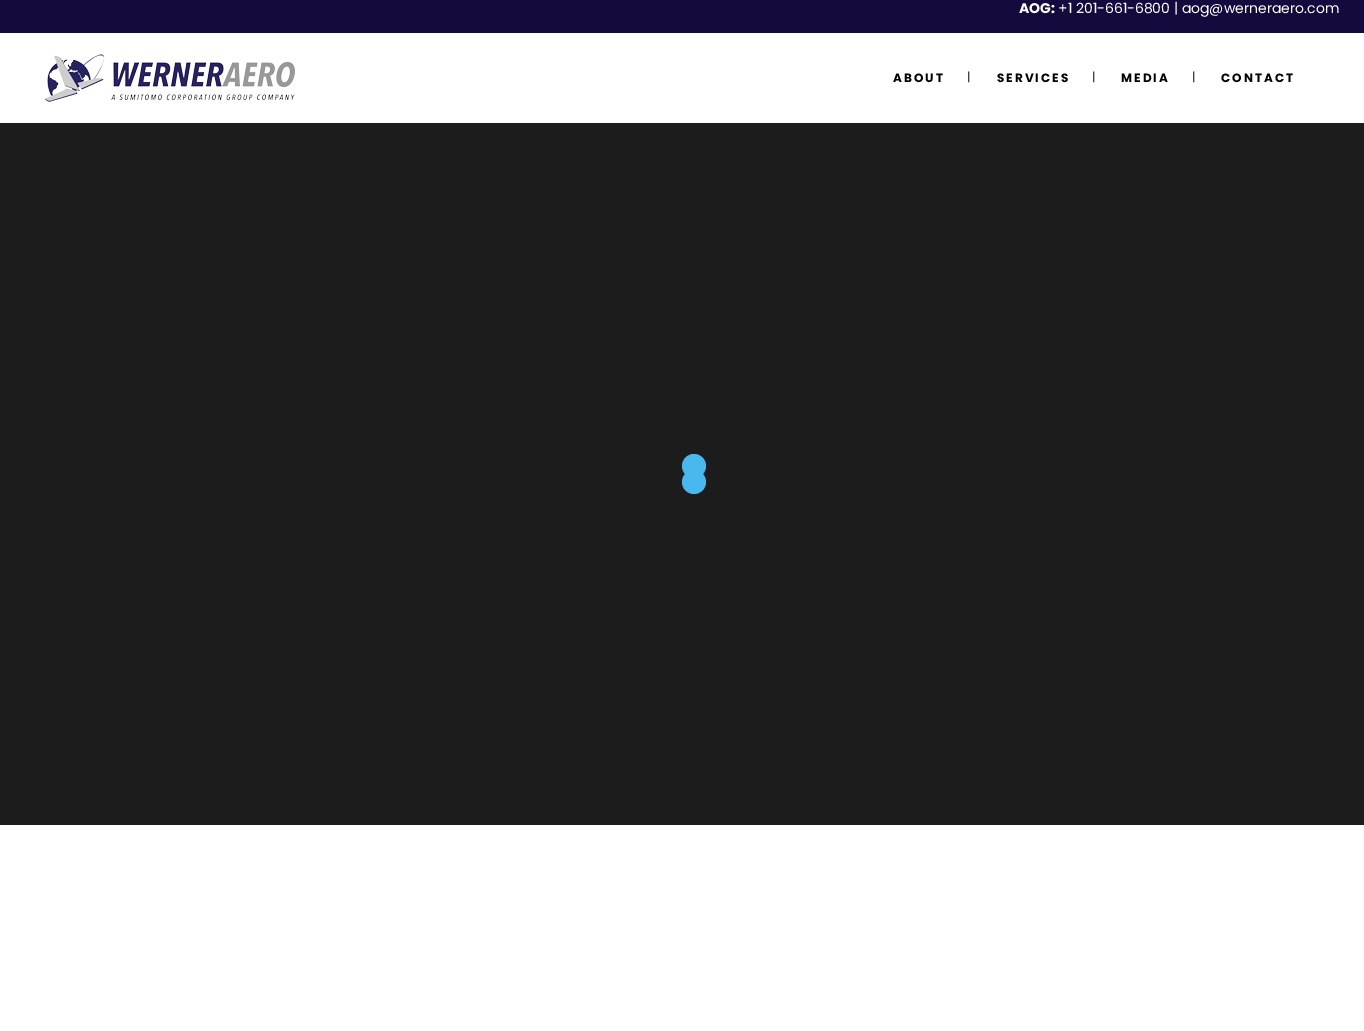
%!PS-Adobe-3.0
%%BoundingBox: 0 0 1364 1031
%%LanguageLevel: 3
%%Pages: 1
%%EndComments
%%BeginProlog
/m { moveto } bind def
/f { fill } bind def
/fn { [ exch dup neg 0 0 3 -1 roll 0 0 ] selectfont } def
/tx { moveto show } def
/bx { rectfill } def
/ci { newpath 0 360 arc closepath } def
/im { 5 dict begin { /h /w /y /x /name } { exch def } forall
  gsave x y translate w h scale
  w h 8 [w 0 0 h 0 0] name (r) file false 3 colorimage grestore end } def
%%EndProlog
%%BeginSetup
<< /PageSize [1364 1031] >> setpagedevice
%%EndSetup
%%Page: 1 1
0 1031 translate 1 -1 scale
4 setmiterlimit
1 setgray
0 0 1364 1031 bx
0.078 0.039 0.239 setrgbcolor
0 0 1364 33 bx
/Poppins-Bold 14 fn
1 setgray
(AOG:) 1019 13 tx
/Poppins-Regular 14 fn
(+1 201-661-6800 | aog@werneraero.com) 1058 13 tx
(image0.raw) 45 54 250 48 im
/Poppins-Bold 12 fn
0 setgray
893 82 m 2 0 (ABOUT) ashow
/Poppins-Regular 12 fn
(|) 967 81 tx
/Poppins-Bold 12 fn
997 82 m 2 0 (SERVICES) ashow
/Poppins-Regular 12 fn
(|) 1092 81 tx
/Poppins-Bold 12 fn
1121 82 m 2 0 (MEDIA) ashow
/Poppins-Regular 12 fn
(|) 1192 81 tx
/Poppins-Bold 12 fn
1221 82 m 2 0 (CONTACT) ashow
0.11 setgray
0 123 1364 702 bx
0.286 0.722 0.937 setrgbcolor
694 466 12 ci f
694 482 12 ci f
showpage
%%EOF
